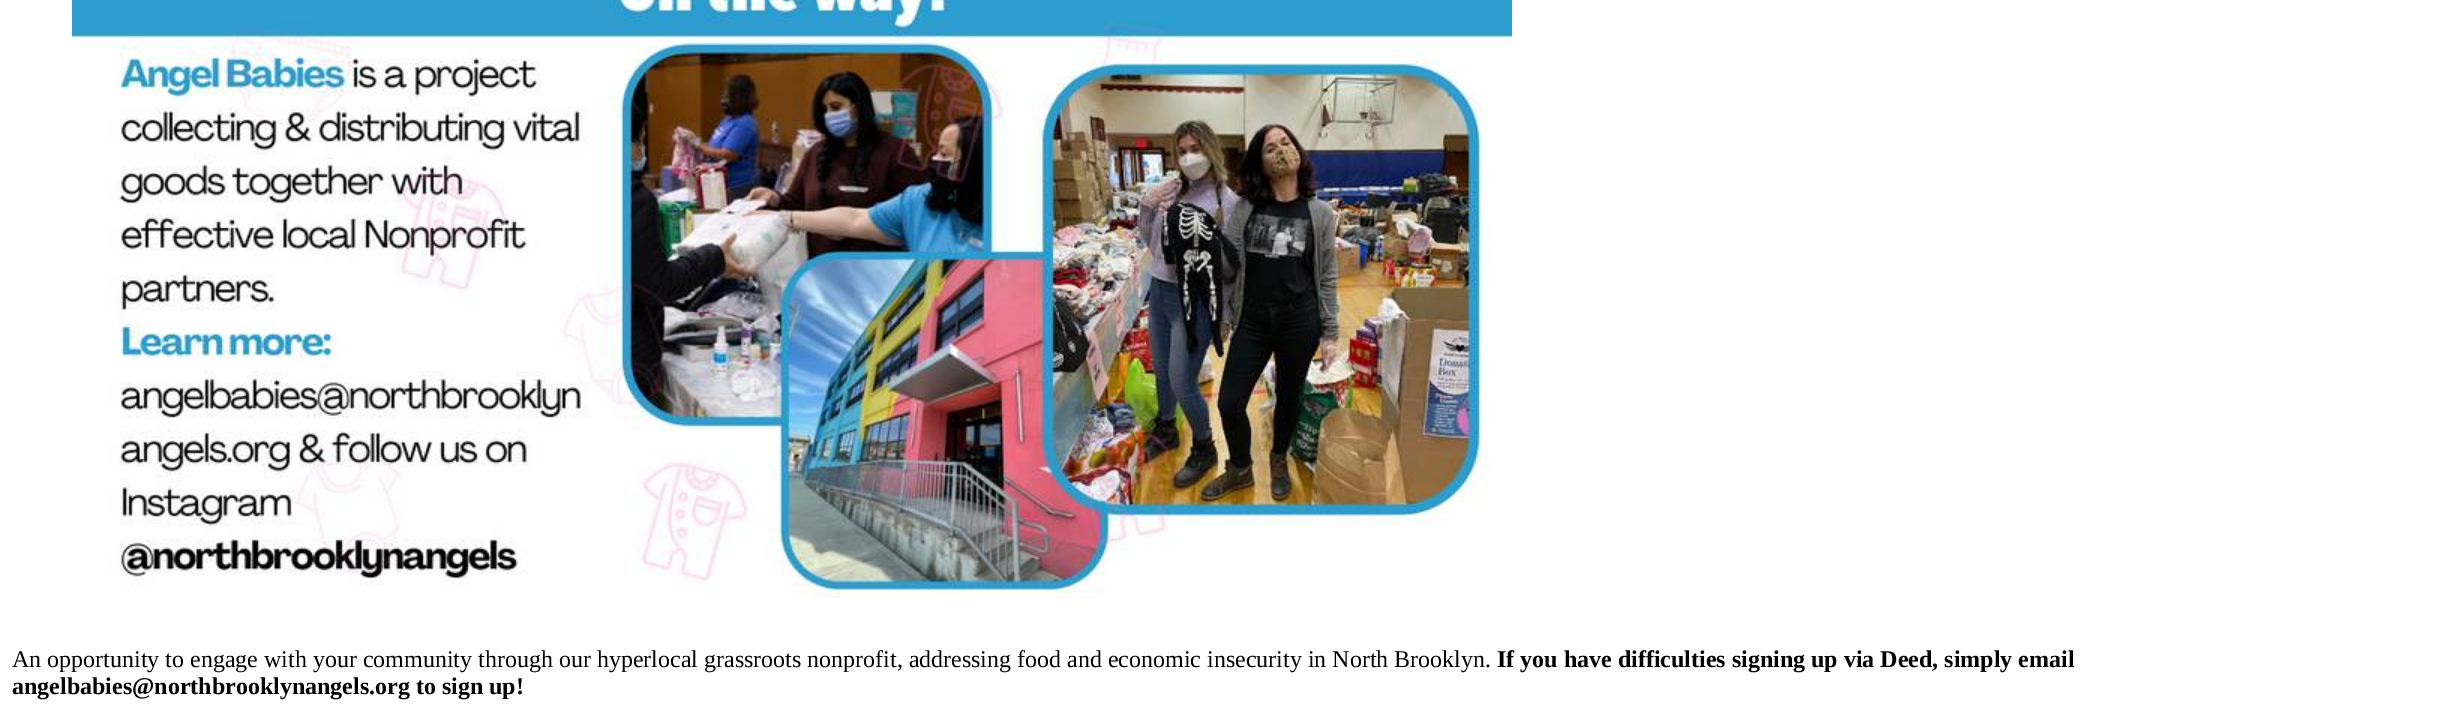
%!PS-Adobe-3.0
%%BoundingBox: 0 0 2449 717
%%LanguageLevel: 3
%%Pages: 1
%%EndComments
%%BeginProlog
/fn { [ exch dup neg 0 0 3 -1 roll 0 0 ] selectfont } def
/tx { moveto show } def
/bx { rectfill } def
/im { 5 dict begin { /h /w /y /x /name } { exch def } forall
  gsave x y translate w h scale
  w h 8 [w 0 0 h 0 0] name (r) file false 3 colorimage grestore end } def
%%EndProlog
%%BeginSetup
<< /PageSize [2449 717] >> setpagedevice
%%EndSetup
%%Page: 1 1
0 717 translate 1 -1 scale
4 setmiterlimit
1 setgray
0 0 2449 717 bx
(image0.raw) 72 0 1440 600 im
/LiberationSerif-Regular 24 fn
0 setgray
(An opportunity to engage with your community through our hyperlocal grassroots nonprofit, addressing food and economic insecurity in North Brooklyn.) 12 667 tx
/LiberationSerif-Bold 24 fn
(If you have difficulties signing up via Deed, simply email) 1497 667 tx
(angelbabies@northbrooklynangels.org to sign up!) 12 694 tx
showpage
%%EOF
